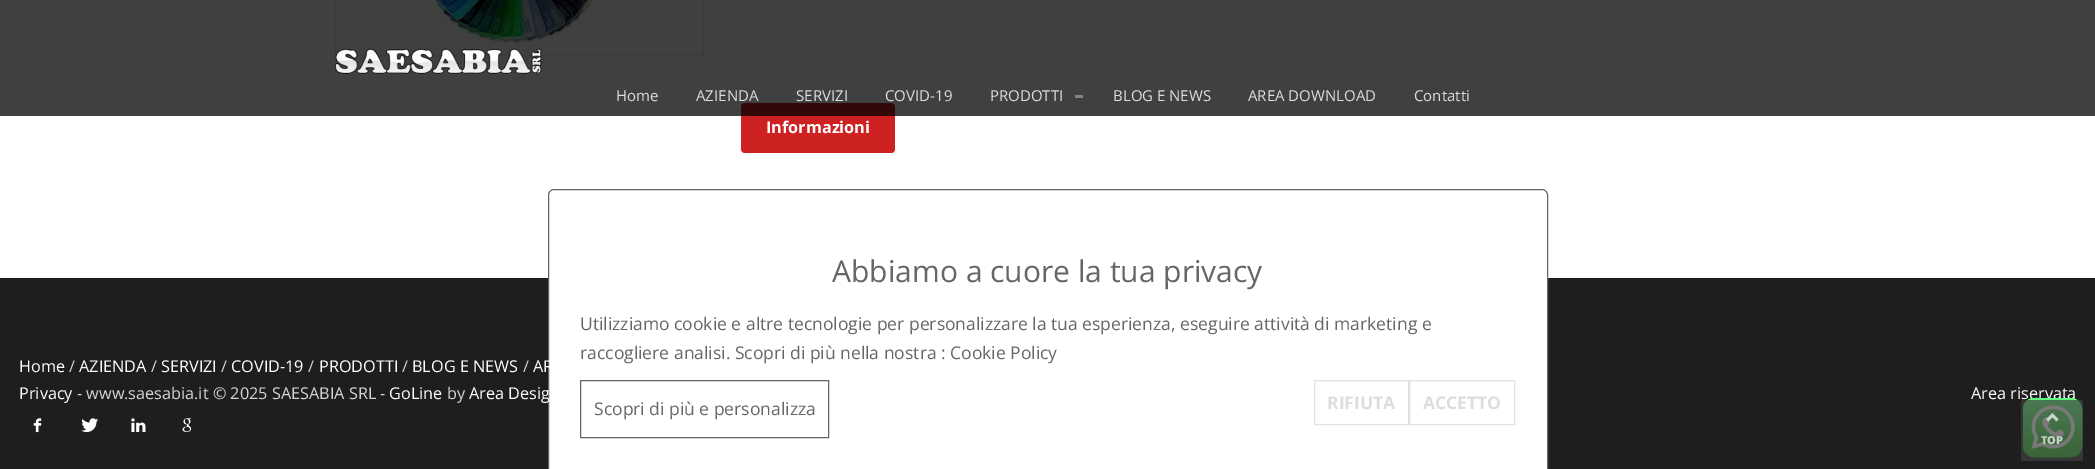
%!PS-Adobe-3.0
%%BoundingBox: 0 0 2095 469
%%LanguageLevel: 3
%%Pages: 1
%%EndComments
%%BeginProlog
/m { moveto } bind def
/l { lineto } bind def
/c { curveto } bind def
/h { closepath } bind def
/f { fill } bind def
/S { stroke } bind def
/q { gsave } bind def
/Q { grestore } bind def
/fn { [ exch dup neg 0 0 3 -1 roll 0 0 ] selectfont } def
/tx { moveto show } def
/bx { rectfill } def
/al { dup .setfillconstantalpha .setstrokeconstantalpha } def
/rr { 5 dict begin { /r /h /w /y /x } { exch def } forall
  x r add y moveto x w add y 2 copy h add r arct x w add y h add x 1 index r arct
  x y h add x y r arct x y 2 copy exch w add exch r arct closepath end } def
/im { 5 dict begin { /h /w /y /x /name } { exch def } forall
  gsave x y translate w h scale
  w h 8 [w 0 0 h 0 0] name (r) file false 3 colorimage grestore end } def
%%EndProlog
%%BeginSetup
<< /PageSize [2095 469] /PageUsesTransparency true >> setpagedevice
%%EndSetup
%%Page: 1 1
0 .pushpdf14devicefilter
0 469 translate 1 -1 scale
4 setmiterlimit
1 setgray
0 0 2095 469 bx
0.918 setgray
335.5 -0.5 368 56 rectstroke
(image1.raw) 421 0 180 47 im
0.804 0.129 0.133 setrgbcolor
741 103 154 50 4 rr f
0.75 al
0 setgray
0 0 2095 116 bx
1 al
(image0.raw) 335 48 207 26 im
/OpenSans-Regular 15 fn
0.867 setgray
(Home) 616 101 tx
(AZIENDA) 696 101 tx
(SERVIZI) 796 101 tx
(COVID-19) 885 101 tx
(PRODOTTI) 990 101 tx
0.525 setgray
1075 95 8 3 bx
0.867 setgray
(BLOG E NEWS) 1113 101 tx
(AREA DOWNLOAD) 1248 101 tx
(Contatti) 1414 101 tx
/OpenSans-Bold 16.25 fn
1 setgray
(Informazioni) 766 133 tx
0.118 setgray
0 278 2095 191 bx
1 setgray
554 189.5 m 1542 189.5 l 1545 189.5 1547.5 192 1547.5 195 c 1547.5 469.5 l 548.5 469.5 l 548.5 195 l 548.5 192 551 189.5 554 189.5 c h q f Q
0.4 setgray
S
/OpenSans-Regular 30 fn
(Abbiamo a cuore la tua privacy) 832 282 tx
/OpenSans-Regular 17.5 fn
(Utilizziamo cookie e altre tecnologie per personalizzare la tua esperienza, eseguire attività di marketing e) 580 330 tx
(raccogliere analisi. Scopri di più nella nostra : Cookie Policy) 580 359 tx
580.5 380.5 248 57 rectstroke
(Scopri di più e personalizza) 594 415 tx
0.878 setgray
1314.5 380.5 94 44 rectstroke
/OpenSans-Bold 17.5 fn
0.867 setgray
(RIFIUTA) 1327 409 tx
0.878 setgray
1409.5 380.5 105 44 rectstroke
0.867 setgray
(ACCETTO) 1423 409 tx
/OpenSans-Regular 16.25 fn
1 setgray
(Home) 19 372 tx
0.835 setgray
(/) 69 372 tx
1 setgray
(AZIENDA) 79 372 tx
0.835 setgray
(/) 151 372 tx
1 setgray
(SERVIZI) 161 372 tx
0.835 setgray
(/) 221 372 tx
1 setgray
(COVID-19) 231 372 tx
0.835 setgray
(/) 308 372 tx
1 setgray
(PRODOTTI) 319 372 tx
0.835 setgray
(/) 402 372 tx
1 setgray
(BLOG E NEWS) 412 372 tx
0.835 setgray
(/) 523 372 tx
1 setgray
(AR) 533 372 tx
(Privacy) 19 399 tx
0.835 setgray
(- www.saesabia.it © 2025 SAESABIA SRL -) 77 399 tx
1 setgray
(GoLine) 389 399 tx
0.835 setgray
(by) 447 399 tx
1 setgray
(Area Desig) 469 399 tx
(Area riservata) 1971 399 tx
(image2.raw) 33 418 9 15 im
(image3.raw) 81 418 17 15 im
(image4.raw) 131 418 15 14 im
(image5.raw) 182 418 10 15 im
(image6.raw) 2023 398 60 60 im
0.7 al
0.251 setgray
2021 400 62 61 2.5 rr f
1 al
(image7.raw) 2046 413 13 9 im
/OpenSans-ExtraBold 11 fn
0.78 0.827 0.78 setrgbcolor
(TOP) 2041 444 tx
.poppdf14devicefilter showpage
%%EOF
